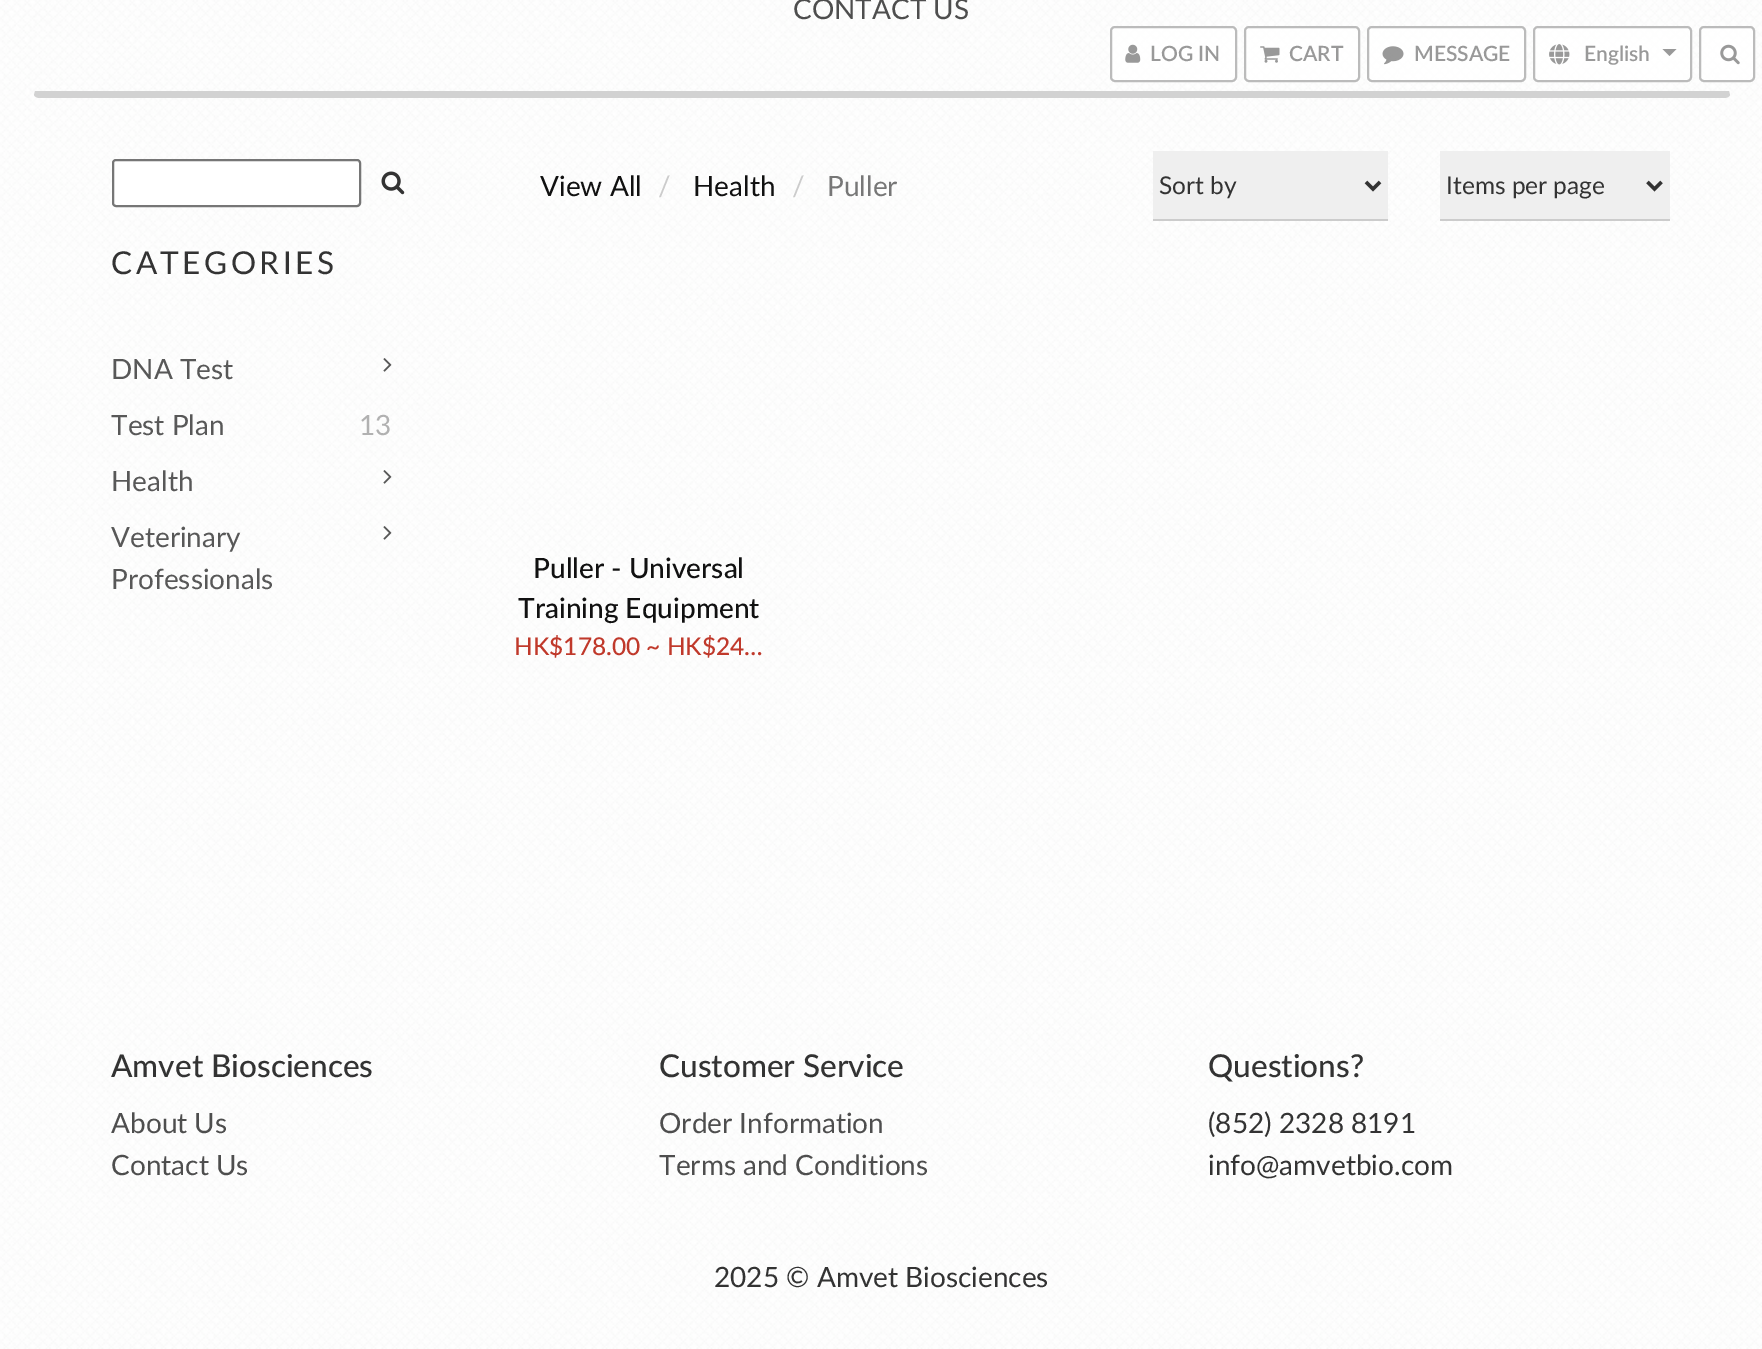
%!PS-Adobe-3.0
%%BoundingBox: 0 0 1762 1349
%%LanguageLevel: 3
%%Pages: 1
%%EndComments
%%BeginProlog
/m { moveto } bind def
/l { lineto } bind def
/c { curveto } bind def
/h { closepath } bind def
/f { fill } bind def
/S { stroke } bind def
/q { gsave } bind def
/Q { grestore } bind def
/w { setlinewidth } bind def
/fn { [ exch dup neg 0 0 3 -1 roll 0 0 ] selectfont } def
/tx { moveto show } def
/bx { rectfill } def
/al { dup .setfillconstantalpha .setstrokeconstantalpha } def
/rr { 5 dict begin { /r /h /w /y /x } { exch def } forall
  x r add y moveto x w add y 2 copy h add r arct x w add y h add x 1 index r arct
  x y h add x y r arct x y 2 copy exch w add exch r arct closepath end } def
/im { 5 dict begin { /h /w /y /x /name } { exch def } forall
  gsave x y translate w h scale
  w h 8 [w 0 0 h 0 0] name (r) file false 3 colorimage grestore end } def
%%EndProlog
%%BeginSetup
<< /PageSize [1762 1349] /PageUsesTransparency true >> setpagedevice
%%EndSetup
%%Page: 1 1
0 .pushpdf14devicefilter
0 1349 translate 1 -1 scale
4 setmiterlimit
1 setgray
0 0 1762 1349 bx
(image0.raw) 0 0 1762 1349 im
0.824 setgray
40 98 m 1724 98 l 1727 98 1729 97 1730 95 c 1729 91 l 35 91 l 34 95 l 35 97 37 98 40 98 c h f
/Lato-Regular 28 fn
0.306 setgray
(CONTACT US) 793 19 tx
1 setgray
113 160 247 46 3 rr q f Q
0.463 setgray
2 w
S
(image1.raw) 381 171 24 24 im
/Lato-Regular 31.5 fn
0.2 setgray
111 274 m 3.5 0 (CATEGORIES) ashow
/Lato-Regular 28 fn
0.345 setgray
(DNA Test) 111 379 tx
(image2.raw) 383 358 9 14 im
(Test Plan) 111 435 tx
0.694 setgray
(13) 359 435 tx
0.345 setgray
(Health) 111 491 tx
(image3.raw) 383 470 9 14 im
(Veterinary) 111 547 tx
(Professionals) 111 589 tx
(image4.raw) 383 526 9 14 im
0.067 setgray
(View All) 540 196 tx
0.8 setgray
(/) 658 196 tx
0.067 setgray
(Health) 693 196 tx
0.8 setgray
(/) 792 196 tx
0.467 setgray
(Puller) 827 196 tx
0.937 setgray
1153 151 235 68 bx
0.8 setgray
1153 219 235 2 bx
0.2 setgray
3.5 w
1366 182 m 1373 189 l 1380 182 l S
/Lato-Regular 24.5 fn
(Sort by) 1159 194 tx
0.937 setgray
1440 151 230 68 bx
0.8 setgray
1440 219 230 2 bx
0.2 setgray
1647.5 182 m 1654.5 189 l 1661.5 182 l S
(Items per page) 1446 194 tx
/Lato-Medium 28 fn
0.067 setgray
(Puller - Universal) 533 578 tx
(Training Equipment) 518 618 tx
/Lato-Medium 24.5 fn
0.753 0.224 0.169 setrgbcolor
(HK$178.00 ~ HK$24…) 514 655 tx
/Lato-Medium 31.5 fn
0.2 setgray
(Amvet Biosciences) 111 1077 tx
/Lato-Regular 28 fn
0.306 setgray
(About Us) 111 1133 tx
(Contact Us) 111 1175 tx
/Lato-Medium 31.5 fn
0.2 setgray
(Customer Service) 659 1077 tx
/Lato-Regular 28 fn
0.306 setgray
(Order Information) 659 1133 tx
(Terms and Conditions) 659 1175 tx
/Lato-Medium 31.5 fn
0.2 setgray
(Questions?) 1208 1077 tx
/Lato-Regular 28 fn
(\(852\) 2328 8191) 1208 1133 tx
(info@amvetbio.com) 1208 1175 tx
(2025 © Amvet Biosciences) 714 1287 tx
0.8 al
1 setgray
1111 27 125 54 4 rr f
1 al
0.733 setgray
2 w
1111 27 125 54 4 rr S
(image5.raw) 1125 44 16 19 im
/Lato-SemiBold 21 fn
0.6 setgray
(LOG IN) 1150 61 tx
0.8 al
1 setgray
1245 27 114 54 4 rr f
1 al
0.733 setgray
1245 27 114 54 4 rr S
(image6.raw) 1260 46 20 17 im
0.6 setgray
(CART) 1289 61 tx
0.8 al
1 setgray
1368 27 157 54 4 rr f
1 al
0.733 setgray
1368 27 157 54 4 rr S
(image7.raw) 1382 46 22 19 im
0.6 setgray
(MESSAGE) 1414 61 tx
0.8 al
1 setgray
1534 27 157 54 4 rr f
1 al
0.733 setgray
1534 27 157 54 4 rr S
(image8.raw) 1549 44 21 21 im
0.6 setgray
(English) 1584 61 tx
1662.5 49 m 1676.5 49 l 1669.5 56 l h f
0.8 al
1 setgray
1699 26 56 56 5 rr f
0.667 setgray
1700 27 54 54 4 rr S
1 al
(image9.raw) 1720 44 20 21 im
.poppdf14devicefilter showpage
%%EOF
